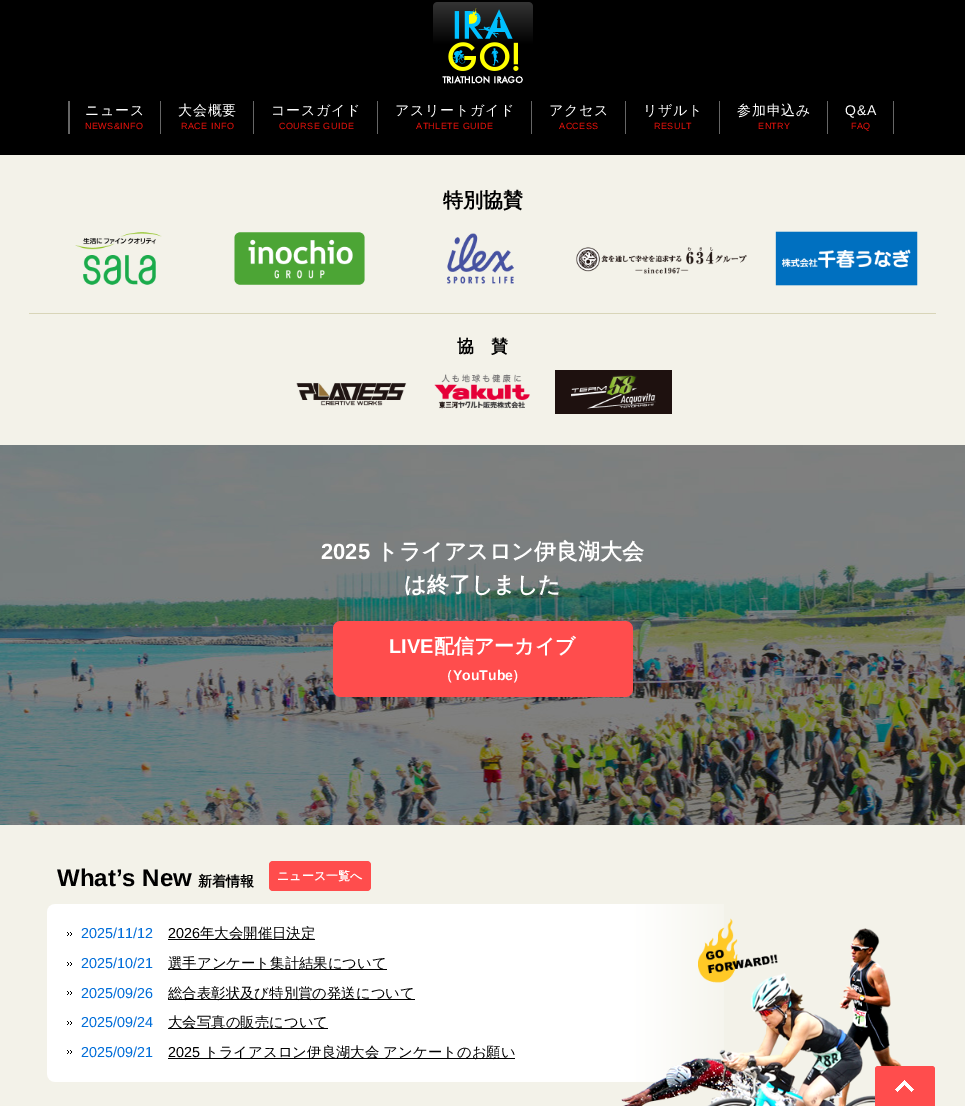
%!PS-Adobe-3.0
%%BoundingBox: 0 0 965 1106
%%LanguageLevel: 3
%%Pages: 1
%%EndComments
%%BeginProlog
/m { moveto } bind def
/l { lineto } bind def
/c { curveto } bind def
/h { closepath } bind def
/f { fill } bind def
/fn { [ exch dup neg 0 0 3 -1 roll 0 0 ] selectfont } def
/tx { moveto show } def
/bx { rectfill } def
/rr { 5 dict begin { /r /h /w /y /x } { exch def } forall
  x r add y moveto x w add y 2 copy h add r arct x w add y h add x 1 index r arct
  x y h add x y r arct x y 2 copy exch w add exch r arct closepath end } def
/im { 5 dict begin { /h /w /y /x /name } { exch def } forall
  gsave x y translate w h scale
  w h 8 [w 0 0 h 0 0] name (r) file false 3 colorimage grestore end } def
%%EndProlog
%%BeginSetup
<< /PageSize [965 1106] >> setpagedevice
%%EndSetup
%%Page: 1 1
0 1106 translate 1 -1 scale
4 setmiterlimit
0.953 0.949 0.914 setrgbcolor
0 0 965 1106 bx
0 setgray
0 0 965 155 bx
(image0.raw) 433 2 100 82 im
0.4 setgray
68 101 2 33 bx
160 101 1 33 bx
/WenQuanYiZenHei-Medium 14 fn
1 setgray
85 115 m 0.75 0 (ニュース) ashow
/LiberationSans-Regular 9 fn
0.945 0.075 0.047 setrgbcolor
85 129 m 0.5 0 (NEWS&INFO) ashow
0.4 setgray
253 101 1 33 bx
/WenQuanYiZenHei-Medium 14 fn
1 setgray
178 115 m 0.75 0 (大会概要) ashow
/LiberationSans-Regular 9 fn
0.945 0.075 0.047 setrgbcolor
181 129 m 0.5 0 (RACE INFO) ashow
0.4 setgray
377 101 1 33 bx
/WenQuanYiZenHei-Medium 14 fn
1 setgray
271 115 m 0.75 0 (コースガイド) ashow
/LiberationSans-Regular 9 fn
0.945 0.075 0.047 setrgbcolor
279 129 m 0.5 0 (COURSE GUIDE) ashow
0.4 setgray
531 101 1 33 bx
/WenQuanYiZenHei-Medium 14 fn
1 setgray
395 115 m 0.75 0 (アスリートガイド) ashow
/LiberationSans-Regular 9 fn
0.945 0.075 0.047 setrgbcolor
416 129 m 0.5 0 (ATHLETE GUIDE) ashow
0.4 setgray
625 101 1 33 bx
/WenQuanYiZenHei-Medium 14 fn
1 setgray
549 115 m 0.75 0 (アクセス) ashow
/LiberationSans-Regular 9 fn
0.945 0.075 0.047 setrgbcolor
559 129 m 0.5 0 (ACCESS) ashow
0.4 setgray
719 101 1 33 bx
/WenQuanYiZenHei-Medium 14 fn
1 setgray
643 115 m 0.75 0 (リザルト) ashow
/LiberationSans-Regular 9 fn
0.945 0.075 0.047 setrgbcolor
654 129 m 0.5 0 (RESULT) ashow
0.4 setgray
827 101 1 33 bx
/WenQuanYiZenHei-Medium 14 fn
1 setgray
737 115 m 0.75 0 (参加申込み) ashow
/LiberationSans-Regular 9 fn
0.945 0.075 0.047 setrgbcolor
758 129 m 0.5 0 (ENTRY) ashow
0.4 setgray
893 101 1 33 bx
/LiberationSans-Regular 14 fn
1 setgray
845 115 m 0.75 0 (Q&A) ashow
/LiberationSans-Regular 9 fn
0.945 0.075 0.047 setrgbcolor
851 129 m 0.5 0 (FAQ) ashow
/WenQuanYiZenHei-Bold 20 fn
0 setgray
(特別協賛) 443 207 tx
0.847 0.835 0.722 setrgbcolor
29 313 907 1 bx
(image1.raw) 75 232 87 53 im
(image2.raw) 234 232 131 53 im
(image3.raw) 446 233 68 51 im
(image4.raw) 576 247 171 27 im
(image5.raw) 775 231 143 55 im
/WenQuanYiZenHei-Bold 17 fn
0 setgray
(協　賛) 457 352 tx
(image6.raw) 296 382 111 24 im
(image7.raw) 434 374 96 35 im
(image8.raw) 555 370 117 44 im
(image9.raw) 0 445 965 380 im
/LiberationSans-Bold 22 fn
1 setgray
(2025) 321 559 tx
/WenQuanYiZenHei-Bold 22 fn
(トライアスロン伊良湖大会) 376 559 tx
(は終了しました) 404 592 tx
1 0.302 0.302 setrgbcolor
333 621 300 76 8 rr f
/LiberationSans-Bold 20 fn
1 setgray
(LIVE) 389 653 tx
/WenQuanYiZenHei-Bold 20 fn
(配信アーカイブ) 434 653 tx
/WenQuanYiZenHei-Bold 14 fn
(（) 439 680 tx
/LiberationSans-Bold 14 fn
(YouTube) 453 680 tx
/WenQuanYiZenHei-Bold 14 fn
(）) 512 680 tx
/LiberationSans-Bold 24 fn
0 setgray
(What’s New) 57 886 tx
/WenQuanYiZenHei-Bold 14 fn
(新着情報) 198 886 tx
1 0.302 0.302 setrgbcolor
269 861 102 30 4 rr f
/WenQuanYiZenHei-Bold 12 fn
1 setgray
(ニュース一覧へ) 277 880 tx
(image10.raw) 47 904 677 178 im
(image11.raw) 67 932 5 4 im
/LiberationSans-Regular 14.4 fn
0 0.427 0.851 setrgbcolor
(2025/11/12) 81 938 tx
0 setgray
(2026) 168 938 tx
168 939 147 1 bx
/WenQuanYiZenHei-Medium 14.4 fn
(年大会開催日決定) 200 938 tx
(image11.raw) 67 962 5 4 im
/LiberationSans-Regular 14.4 fn
0 0.427 0.851 setrgbcolor
(2025/10/21) 81 968 tx
0 setgray
168 969 219 1 bx
/WenQuanYiZenHei-Medium 14.4 fn
(選手アンケート集計結果について) 168 968 tx
(image11.raw) 67 991 5 4 im
/LiberationSans-Regular 14.4 fn
0 0.427 0.851 setrgbcolor
(2025/09/26) 81 998 tx
0 setgray
168 999 247 1 bx
/WenQuanYiZenHei-Medium 14.4 fn
(総合表彰状及び特別賞の発送について) 168 998 tx
(image11.raw) 67 1021 5 4 im
/LiberationSans-Regular 14.4 fn
0 0.427 0.851 setrgbcolor
(2025/09/24) 81 1027 tx
0 setgray
168 1028 160 1 bx
/WenQuanYiZenHei-Medium 14.4 fn
(大会写真の販売について) 168 1027 tx
(image11.raw) 67 1050 5 4 im
/LiberationSans-Regular 14.4 fn
0 0.427 0.851 setrgbcolor
(2025/09/21) 81 1057 tx
0 setgray
(2025) 168 1057 tx
168 1058 347 1 bx
/WenQuanYiZenHei-Medium 14.4 fn
(トライアスロン伊良湖大会 アンケートのお願い) 204 1057 tx
(image12.raw) 621 918 281 188 im
1 0.302 0.302 setrgbcolor
878 1066 m 932 1066 l 933.5 1066 935 1067.5 935 1069 c 935 1106 l 875 1106 l 875 1069 l 875 1067.5 876.5 1066 878 1066 c h f
(image13.raw) 895 1080 19 12 im
showpage
%%EOF
